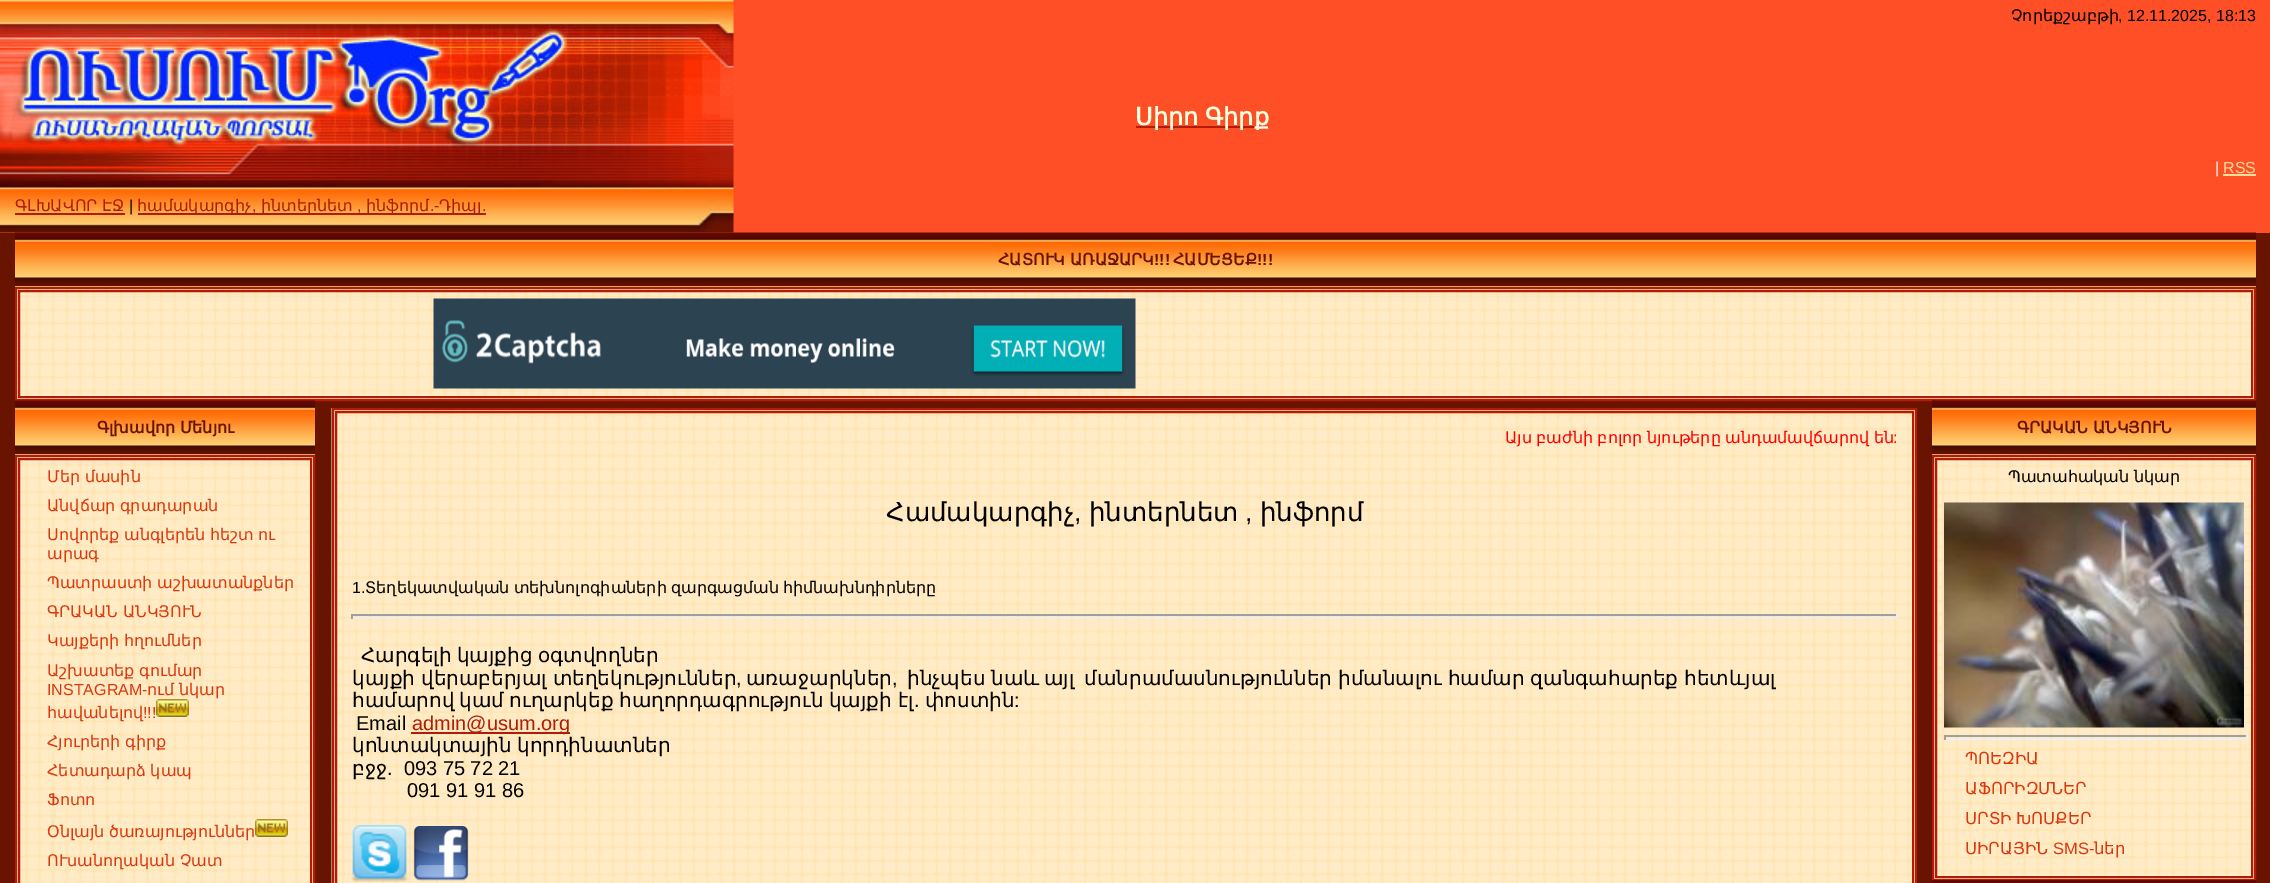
%!PS-Adobe-3.0
%%BoundingBox: 0 0 2270 883
%%LanguageLevel: 3
%%Pages: 1
%%EndComments
%%BeginProlog
/m { moveto } bind def
/w { setlinewidth } bind def
/fn { [ exch dup neg 0 0 3 -1 roll 0 0 ] selectfont } def
/tx { moveto show } def
/bx { rectfill } def
/im { 5 dict begin { /h /w /y /x /name } { exch def } forall
  gsave x y translate w h scale
  w h 8 [w 0 0 h 0 0] name (r) file false 3 colorimage grestore end } def
%%EndProlog
%%BeginSetup
<< /PageSize [2270 883] >> setpagedevice
%%EndSetup
%%Page: 1 1
0 883 translate 1 -1 scale
4 setmiterlimit
0.412 0.078 0 setrgbcolor
0 0 2270 883 bx
1 0.31 0.153 setrgbcolor
0 0 2270 233 bx
0.698 0.106 0.016 setrgbcolor
1136 126 133 2 bx
/DejaVuSans-Bold 24 fn
1 1 0.878 setrgbcolor
(Սիրո) 1135 125 tx
(Գիրք) 1205 125 tx
/DejaVuSans-Regular 16 fn
0 setgray
(Չորեքշաբթի) 2011 21 tx
/LiberationSans-Regular 16 fn
(, 12.11.2025, 18:13) 2118 21 tx
1 setgray
(|) 2215 173 tx
1 0.863 0.6 setrgbcolor
(RSS) 2223 173 tx
2223 174 33 2 bx
(image0.raw) 0 0 734 233 im
/DejaVuSans-Regular 16 fn
0.698 0.106 0.016 setrgbcolor
15 211 m -0.5 0 32 (ԳԼԽԱՎՈՐ ԷՋ) widthshow
15 213 110 2 bx
/LiberationSans-Regular 16 fn
0 setgray
(|) 129 211 tx
0.698 0.106 0.016 setrgbcolor
138 213 348 2 bx
/DejaVuSans-Regular 16 fn
(համակարգիչ) 137 211 tx
(ինտերնետ) 261 211 tx
(ինֆորմ) 366 211 tx
/LiberationSans-Regular 16 fn
(.-) 430 211 tx
/DejaVuSans-Regular 16 fn
(Դիպլ) 439 211 tx
/LiberationSans-Regular 16 fn
(,) 252 211 tx
(,) 357 211 tx
(.) 482 211 tx
(image1.raw) 15 232 2241 55 im
/DejaVuSans-Bold 16 fn
0.412 0.078 0 setrgbcolor
998 265 m -0.5 0 32 (ՀԱՏՈՒԿ ԱՌԱՋԱՐԿ) widthshow
/LiberationSans-Bold 16 fn
(!!!) 1154 265 tx
/DejaVuSans-Bold 16 fn
(ՀԱՄԵՑԵՔ) 1173 265 tx
/LiberationSans-Bold 16 fn
(!!!) 1257 265 tx
(image2.raw) 15 286 2241 113 im
0.698 0.106 0.016 setrgbcolor
2 w
16 288 2239 112 rectstroke
19 291 2233 106 rectstroke
(image3.raw) 433 298 703 91 im
(image4.raw) 15 400 300 55 im
/DejaVuSans-Bold 16 fn
0.412 0.078 0 setrgbcolor
97 433 m -0.5 0 32 (Գլխավոր Մենյու) widthshow
(image5.raw) 15 454 300 429 im
0.698 0.106 0.016 setrgbcolor
16 456 298 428 rectstroke
19 459 292 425 rectstroke
/DejaVuSans-Regular 16 fn
0.863 0.216 0.051 setrgbcolor
47 482 m -0.5 0 32 (Մեր մասին) widthshow
47 511 m -0.5 0 32 (Անվճար գրադարան) widthshow
47 540 m -0.5 0 32 (Սովորեք անգլերեն հեշտ ու) widthshow
(արագ) 47 559 tx
47 588 m -0.5 0 32 (Պատրաստի աշխատանքներ) widthshow
47 617 m -0.5 0 32 (ԳՐԱԿԱՆ ԱՆԿՅՈՒՆ) widthshow
47 646 m -0.5 0 32 (Կայքերի հղումներ) widthshow
47 676 m -0.5 0 32 (Աշխատեք գումար) widthshow
/LiberationSans-Regular 16 fn
(INSTAGRAM-) 47 695 tx
/DejaVuSans-Regular 16 fn
147 695 m -0.5 0 32 (ում նկար) widthshow
(հավանելով) 47 718 tx
/LiberationSans-Regular 16 fn
(!!!) 143 718 tx
(image6.raw) 156 699 33 18 im
/DejaVuSans-Regular 16 fn
47 747 m -0.5 0 32 (Հյուրերի գիրք) widthshow
47 776 m -0.5 0 32 (Հետադարձ կապ) widthshow
(Ֆոտո) 47 805 tx
47 837 m -0.5 0 32 (Օնլայն ծառայություններ) widthshow
(image6.raw) 255 819 33 18 im
47 866 m -0.5 0 32 (ՈՒսանողական Չատ) widthshow
(image7.raw) 331 408 1584 475 im
0.698 0.106 0.016 setrgbcolor
333 409 1583 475 rectstroke
336 412 1577 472 rectstroke
1 0 0 setrgbcolor
1505 443 m -0.5 0 32 (Այս բաժնի բոլոր նյութերը անդամավճարով են) widthshow
/LiberationSans-Regular 16 fn
(:) 1893 443 tx
/DejaVuSans-Regular 26 fn
0 setgray
(Համակարգիչ) 886 521 tx
/LiberationSans-Regular 26 fn
(,) 1074 521 tx
/DejaVuSans-Regular 26 fn
(ինտերնետ) 1089 521 tx
/LiberationSans-Regular 26 fn
(,) 1245 521 tx
/DejaVuSans-Regular 26 fn
(ինֆորմ) 1260 521 tx
/LiberationSans-Regular 16 fn
(1.) 352 593 tx
/DejaVuSans-Regular 16 fn
365 593 m -1 0 32 (Տեղեկատվական տեխնոլոգիաների զարգացման հիմնախնդիրները) widthshow
0.624 setgray
351 614 1547 2 bx
0.933 setgray
1896 614 2 5 bx
351 617 1547 2 bx
0.624 setgray
351 614 2 5 bx
/DejaVuSans-Regular 20 fn
0 setgray
361 662 m -1 0 32 (Հարգելի կայքից օգտվողներ) widthshow
352 685 m -0.5 0 32 (կայքի վերաբերյալ տեղեկություններ) widthshow
/LiberationSans-Regular 20 fn
(,) 736 685 tx
/DejaVuSans-Regular 20 fn
(առաջարկներ) 746 685 tx
/LiberationSans-Regular 20 fn
(,) 892 685 tx
/DejaVuSans-Regular 20 fn
907 685 m -0.5 0 32 (ինչպես նաև) widthshow
(այլ) 1044 685 tx
1084 685 m -0.5 0 32 (մանրամասնություններ իմանալու համար զանգահարեք հետևյալ) widthshow
(համարով) 352 707 tx
459 707 m -1 0 32 (կամ ուղարկեք հաղորդագրություն կայքի) widthshow
(էլ) 898 707 tx
/LiberationSans-Regular 20 fn
(.) 914 707 tx
/DejaVuSans-Regular 20 fn
(փոստին) 925 707 tx
/LiberationSans-Regular 20 fn
(:) 1014 707 tx
(Email) 356 730 tx
0.698 0.106 0.016 setrgbcolor
411 732 159 2 bx
(admin@usum.org) 412 730 tx
/DejaVuSans-Regular 20 fn
0 setgray
(կոնտակտային) 352 752 tx
(կորդինատներ) 517 752 tx
(բջջ) 352 775 tx
/LiberationSans-Regular 20 fn
(.  093 75 72 21) 387 775 tx
(091 91 91 86) 407 797 tx
(image8.raw) 351 825 57 57 im
(image9.raw) 413 826 56 55 im
(image10.raw) 1932 400 324 55 im
/DejaVuSans-Bold 16 fn
0.412 0.078 0 setrgbcolor
2017 433 m -0.5 0 32 (ԳՐԱԿԱՆ ԱՆԿՅՈՒՆ) widthshow
(image11.raw) 1932 454 324 425 im
0.698 0.106 0.016 setrgbcolor
1933 456 322 424 rectstroke
1936 459 316 418 rectstroke
/DejaVuSans-Regular 16 fn
0 setgray
2008 482 m -0.5 0 32 (Պատահական նկար) widthshow
(image12.raw) 1944 502 300 226 im
0.624 setgray
1944 735 303 2 bx
0.933 setgray
2246 735 2 5 bx
1944 738 303 2 bx
0.624 setgray
1944 735 2 5 bx
/DejaVuSans-Regular 16.5 fn
0.863 0.216 0.051 setrgbcolor
(ՊՈԵԶԻԱ) 1965 764 tx
(ԱՖՈՐԻԶՄՆԵՐ) 1965 794 tx
1965 824 m -1 0 32 (ՍՐՏԻ ԽՈՍՔԵՐ) widthshow
(ՍԻՐԱՅԻՆ) 1965 854 tx
/LiberationSans-Regular 16.5 fn
(SMS-) 2053 854 tx
/DejaVuSans-Regular 16.5 fn
(ներ) 2094 854 tx
0.396 0.035 0 setrgbcolor
1932 880 324 3 bx
showpage
%%EOF
